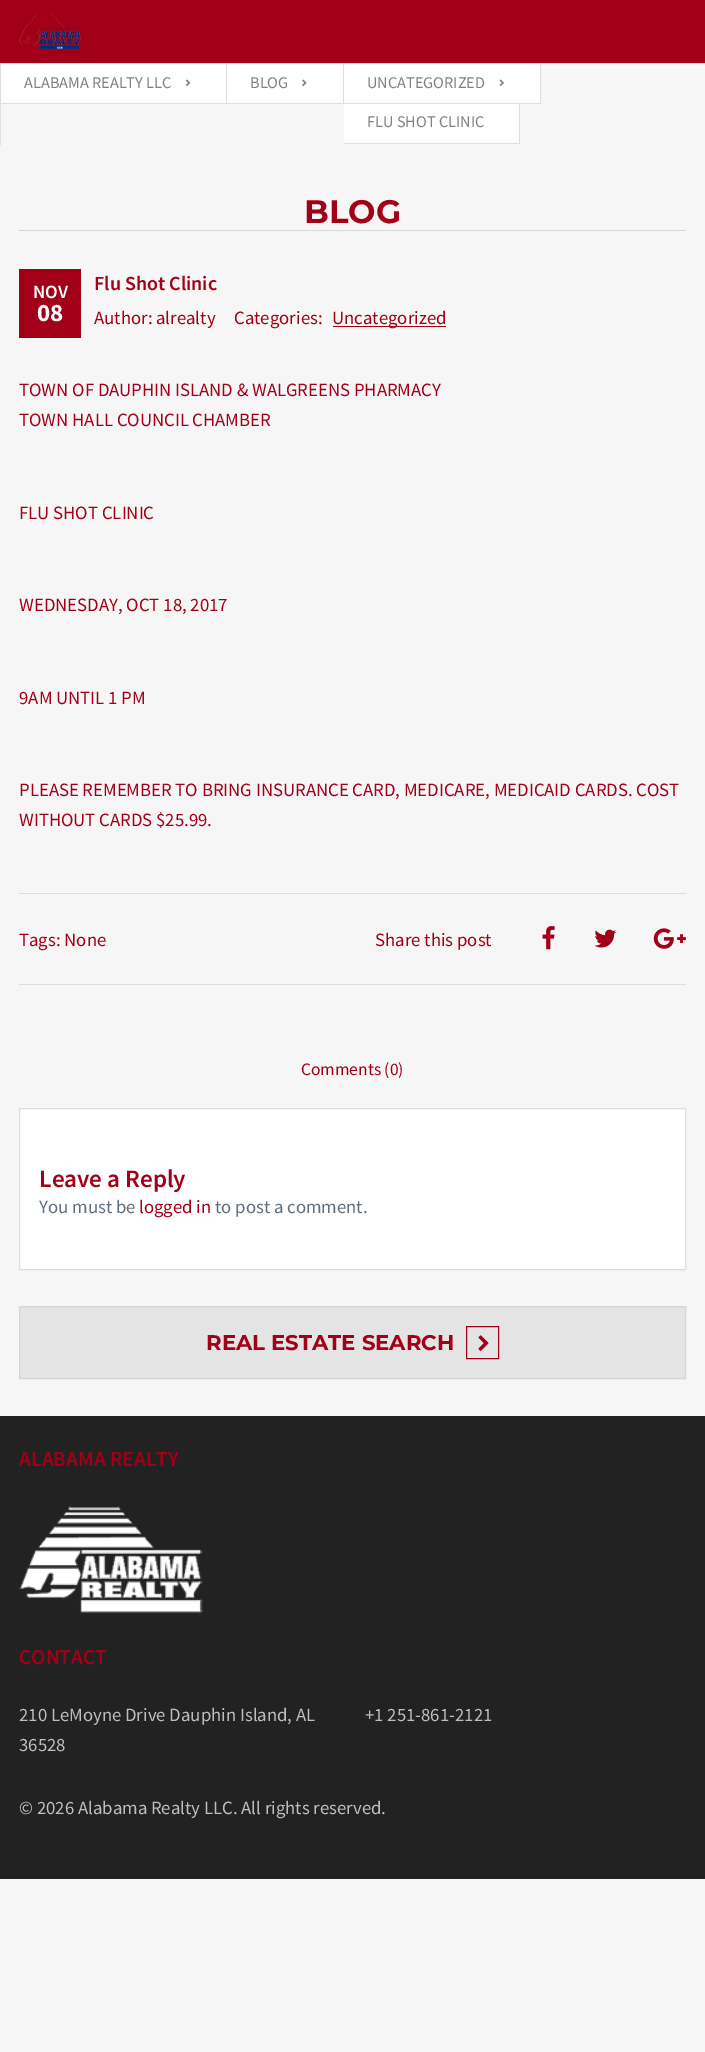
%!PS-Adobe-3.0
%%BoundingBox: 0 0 705 2052
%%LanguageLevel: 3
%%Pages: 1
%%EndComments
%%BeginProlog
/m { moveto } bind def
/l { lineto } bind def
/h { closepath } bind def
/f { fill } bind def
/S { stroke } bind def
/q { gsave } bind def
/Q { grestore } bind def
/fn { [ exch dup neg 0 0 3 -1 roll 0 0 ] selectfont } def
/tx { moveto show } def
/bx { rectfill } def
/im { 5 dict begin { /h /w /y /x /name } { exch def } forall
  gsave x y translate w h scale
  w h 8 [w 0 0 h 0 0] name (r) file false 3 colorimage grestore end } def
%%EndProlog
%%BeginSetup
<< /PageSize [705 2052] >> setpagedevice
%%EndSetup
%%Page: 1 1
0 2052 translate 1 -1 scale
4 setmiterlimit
0.965 setgray
0 0 705 2052 bx
0.635 0 0.094 setrgbcolor
0 0 705 63 bx
(image0.raw) 18 14 63 36 im
0.871 setgray
0 63 705 1 bx
0 64 1 81 bx
1 setgray
1 64 342 39 bx
0.871 setgray
226 63 1 41 bx
1 103 227 1 bx
/SourceSansPro-Regular 16.25 fn
0.502 setgray
(ALABAMA REALTY LLC) 24 88 tx
(image1.raw) 185 79 6 8 im
0.871 setgray
343 63 1 41 bx
228 103 116 1 bx
0.502 setgray
(BLOG) 250 88 tx
(image2.raw) 302 79 5 8 im
1 setgray
344 64 196 39 bx
0.871 setgray
540 63 1 41 bx
344 103 197 1 bx
0.502 setgray
(UNCATEGORIZED) 367 88 tx
(image3.raw) 499 79 5 8 im
1 setgray
344 104 175 39 bx
0.871 setgray
519 103 1 41 bx
344 143 176 1 bx
0.502 setgray
(FLU SHOT CLINIC) 367 127 tx
/Montserrat-Bold 32.5 fn
0.635 0 0.094 setrgbcolor
(BLOG) 304 223 tx
0.839 setgray
19 230 667 1 bx
0.635 0 0.094 setrgbcolor
19 269 62 69 bx
/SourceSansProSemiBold-SemiBold 18.75 fn
1 setgray
(NOV) 33 298 tx
/SourceSansPro-Bold 25 fn
(08) 37 321 tx
/SourceSansProSemiBold-SemiBold 20 fn
0.635 0 0.094 setrgbcolor
(Flu Shot Clinic) 94 290 tx
/SourceSansPro-Regular 18.75 fn
(Author: alrealty) 94 324 tx
(Categories:) 234 324 tx
333 326 113 1 bx
(Uncategorized) 332 324 tx
(TOWN OF DAUPHIN ISLAND & WALGREENS PHARMACY) 19 396 tx
(TOWN HALL COUNCIL CHAMBER) 19 426 tx
(FLU SHOT CLINIC) 19 519 tx
(WEDNESDAY, OCT 18, 2017) 19 611 tx
(9AM UNTIL 1 PM) 19 704 tx
(PLEASE REMEMBER TO BRING INSURANCE CARD, MEDICARE, MEDICAID CARDS. COST) 19 796 tx
(WITHOUT CARDS $25.99.) 19 826 tx
0.871 setgray
19 893 667 1 bx
19 984 667 1 bx
0.635 0 0.094 setrgbcolor
(Tags: None) 19 946 tx
(Share this post) 375 946 tx
(image4.raw) 542 926 13 24 im
(image5.raw) 594 929 23 19 im
(image6.raw) 653 928 33 21 im
/SourceSansPro-Regular 17.5 fn
(Comments \(0\)) 301 1075 tx
1 setgray
19.5 1108.5 m 685.5 1108.5 l 685.5 1269.5 l 19.5 1269.5 l h q f Q
0.871 setgray
S
/SourceSansProSemiBold-SemiBold 25 fn
0.635 0 0.094 setrgbcolor
(Leave a Reply) 39 1187 tx
/SourceSansPro-Regular 18.75 fn
0.376 0.431 0.486 setrgbcolor
(You must be) 39 1213 tx
0.635 0 0.094 setrgbcolor
(logged in) 139 1213 tx
0.376 0.431 0.486 setrgbcolor
(to post a comment.) 215 1213 tx
0.894 setgray
19.5 1306.5 m 685.5 1306.5 l 685.5 1378.5 l 19.5 1378.5 l h q f Q
0.839 setgray
S
/Montserrat-Bold 21.25 fn
0.635 0 0.094 setrgbcolor
(REAL ESTATE SEARCH) 206 1350 tx
466.5 1326.5 32 32 rectstroke
(image7.raw) 478 1335 11 16 im
0.133 setgray
0 1416 705 463 bx
/SourceSansProSemiBold-SemiBold 21.25 fn
0.635 0 0.094 setrgbcolor
(ALABAMA REALTY) 19 1466 tx
(image8.raw) 18 1506 185 107 im
(CONTACT) 19 1664 tx
/SourceSansPro-Regular 18.75 fn
0.745 setgray
(210 LeMoyne Drive Dauphin Island, AL) 19 1721 tx
(36528) 19 1751 tx
(+1 251-861-2121) 365 1721 tx
(© 2026 Alabama Realty LLC. All rights reserved.) 19 1814 tx
showpage
%%EOF
